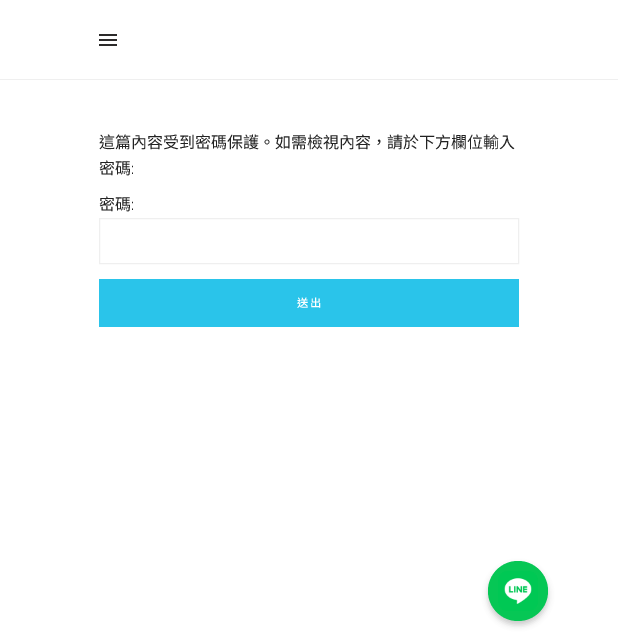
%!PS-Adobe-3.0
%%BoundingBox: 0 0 618 641
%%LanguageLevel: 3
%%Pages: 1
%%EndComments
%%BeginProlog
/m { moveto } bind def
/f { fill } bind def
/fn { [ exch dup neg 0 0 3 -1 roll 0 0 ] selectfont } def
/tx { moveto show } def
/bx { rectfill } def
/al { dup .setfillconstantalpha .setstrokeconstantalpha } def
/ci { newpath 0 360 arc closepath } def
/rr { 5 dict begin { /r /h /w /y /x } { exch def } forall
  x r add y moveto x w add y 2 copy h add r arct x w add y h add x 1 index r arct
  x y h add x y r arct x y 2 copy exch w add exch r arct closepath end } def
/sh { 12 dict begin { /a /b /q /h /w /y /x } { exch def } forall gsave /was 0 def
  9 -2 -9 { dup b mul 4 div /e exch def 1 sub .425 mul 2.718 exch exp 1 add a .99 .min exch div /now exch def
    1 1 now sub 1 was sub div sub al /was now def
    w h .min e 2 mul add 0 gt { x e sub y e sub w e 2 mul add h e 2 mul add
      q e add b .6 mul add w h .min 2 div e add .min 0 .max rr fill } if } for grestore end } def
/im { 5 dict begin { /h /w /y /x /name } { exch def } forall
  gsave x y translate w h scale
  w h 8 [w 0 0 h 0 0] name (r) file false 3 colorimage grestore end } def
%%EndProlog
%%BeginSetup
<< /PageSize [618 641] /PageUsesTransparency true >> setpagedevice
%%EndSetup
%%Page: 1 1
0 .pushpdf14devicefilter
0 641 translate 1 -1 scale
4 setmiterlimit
1 setgray
0 0 618 641 bx
0.937 setgray
0 79 618 1 bx
0.173 0.165 0.165 setrgbcolor
99 34 18 2 bx
99 39 18 2 bx
99 44 18 2 bx
/NotoSansCJKTC-Regular 16 fn
0.133 setgray
(這篇內容受到密碼保護。如需檢視內容，請於下方欄位輸入) 99 148 tx
(密碼) 99 174 tx
/Raleway-Regular 16 fn
(:) 131 174 tx
/NotoSansCJKTC-Regular 16 fn
(密碼) 99 210 tx
/Raleway-Regular 16 fn
(:) 131 210 tx
0.937 setgray
99.5 218.5 419 45 rectstroke
0.165 0.769 0.918 setrgbcolor
99 279 420 48 bx
/NotoSansCJKTC-Bold 11 fn
1 setgray
297 307 m 2 0 (送出) ashow
0 setgray
488 565 60 60 30 3 0.2 sh
0.024 0.78 0.333 setrgbcolor
518 591 30 ci f
(image0.raw) 498 571 40 40 im
.poppdf14devicefilter showpage
%%EOF
